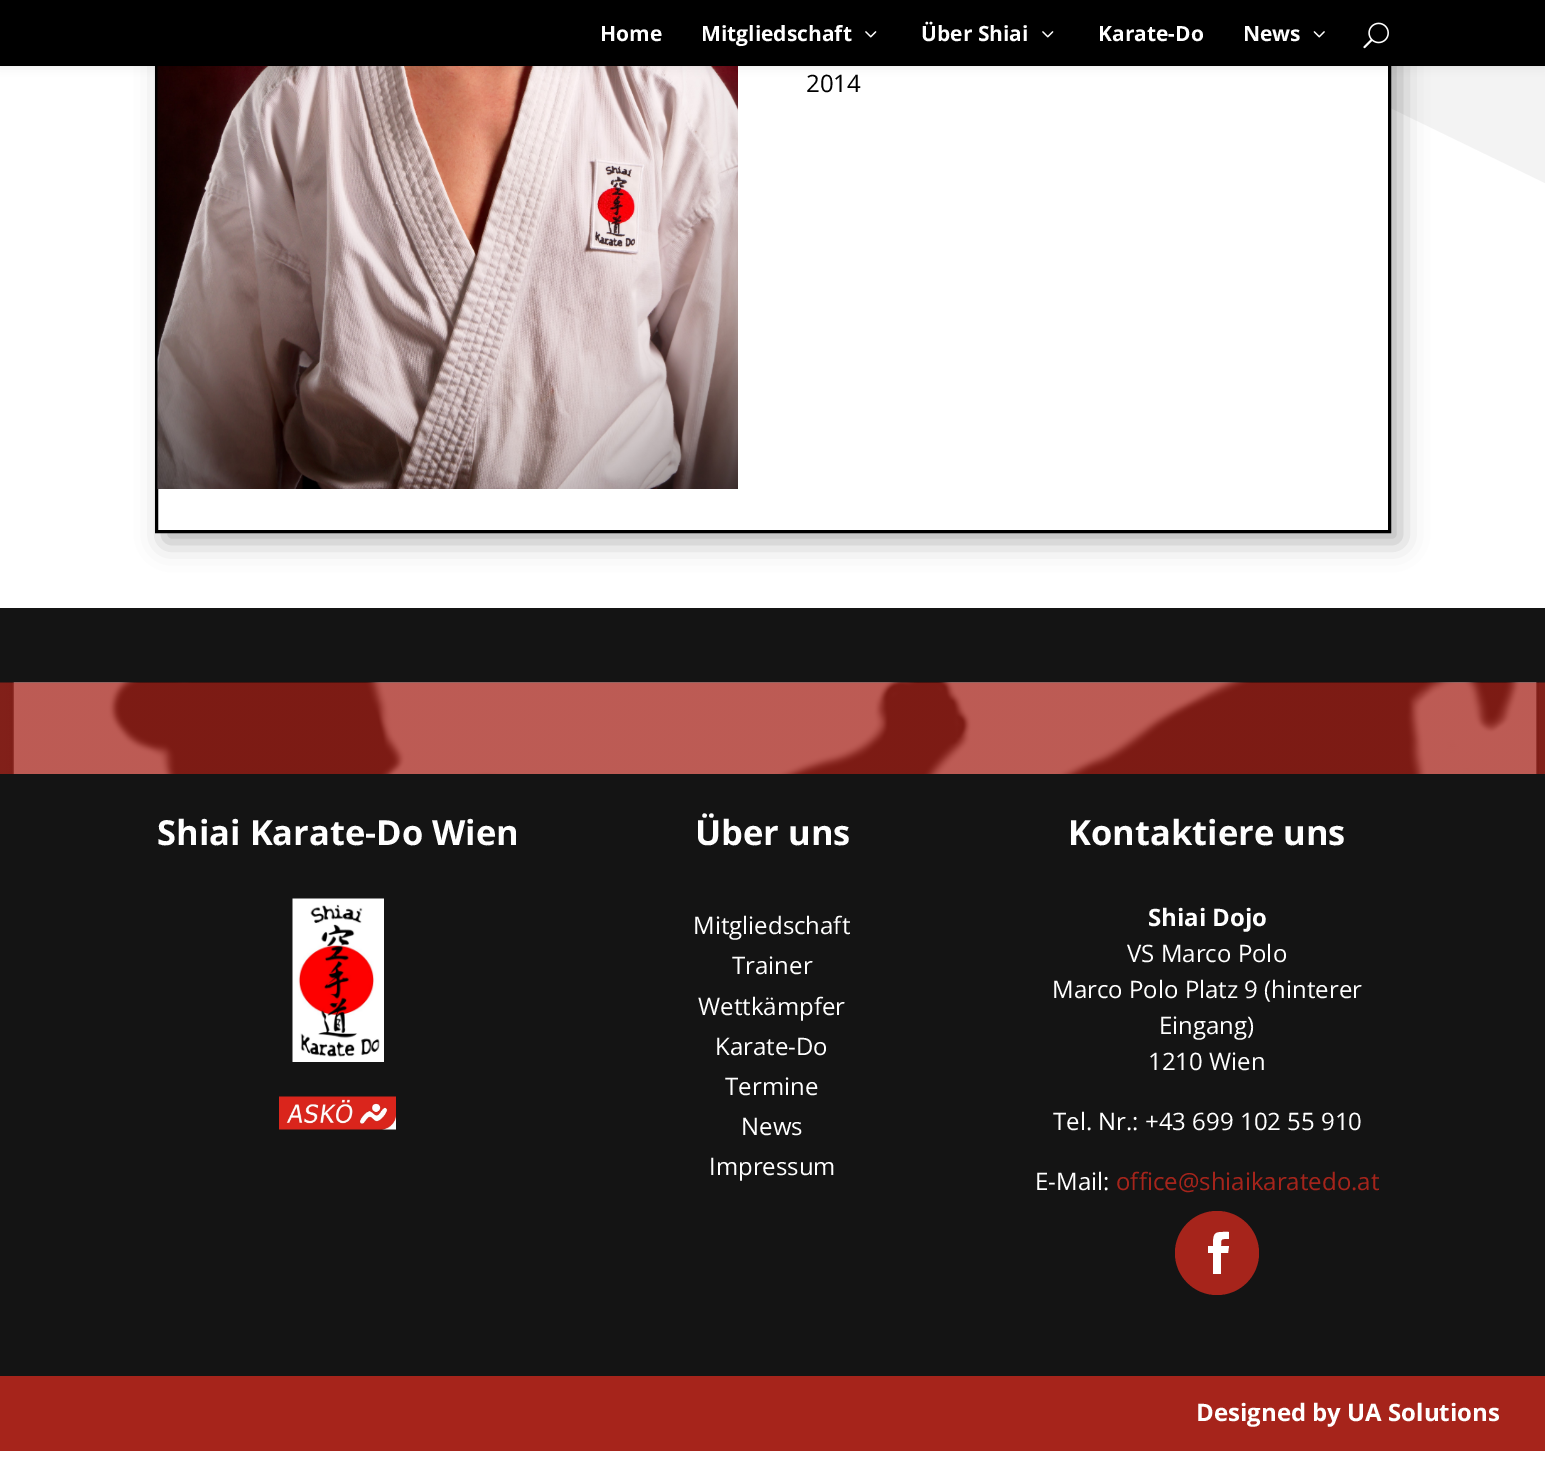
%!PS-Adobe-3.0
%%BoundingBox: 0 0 1545 1480
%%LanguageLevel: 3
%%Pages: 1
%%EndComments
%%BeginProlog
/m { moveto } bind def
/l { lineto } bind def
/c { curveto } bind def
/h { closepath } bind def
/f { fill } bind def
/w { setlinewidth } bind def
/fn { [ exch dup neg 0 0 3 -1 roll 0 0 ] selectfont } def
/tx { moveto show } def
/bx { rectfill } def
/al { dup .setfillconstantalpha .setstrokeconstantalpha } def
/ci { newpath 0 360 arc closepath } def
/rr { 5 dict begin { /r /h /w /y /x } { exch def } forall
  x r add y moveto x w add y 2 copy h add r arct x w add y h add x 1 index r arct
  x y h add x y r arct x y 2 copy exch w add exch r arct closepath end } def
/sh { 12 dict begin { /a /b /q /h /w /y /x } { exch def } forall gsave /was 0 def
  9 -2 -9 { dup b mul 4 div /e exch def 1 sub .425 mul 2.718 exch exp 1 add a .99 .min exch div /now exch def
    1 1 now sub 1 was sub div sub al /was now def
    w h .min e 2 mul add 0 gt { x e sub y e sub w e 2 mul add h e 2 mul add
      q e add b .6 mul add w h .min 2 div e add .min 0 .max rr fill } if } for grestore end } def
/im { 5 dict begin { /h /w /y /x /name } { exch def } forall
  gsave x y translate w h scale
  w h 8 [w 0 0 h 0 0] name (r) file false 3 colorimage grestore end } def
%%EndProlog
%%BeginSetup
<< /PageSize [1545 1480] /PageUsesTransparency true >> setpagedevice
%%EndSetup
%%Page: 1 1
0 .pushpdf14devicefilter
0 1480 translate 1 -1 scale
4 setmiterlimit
1 setgray
0 0 1545 1480 bx
0.953 setgray
1545 183 m 1545 -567 l 0 -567 l h f
0 setgray
164 -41 1236 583 0 13.5 0.3 sh
1 setgray
158 66 1230 464 bx
0 setgray
3 w
156.5 -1.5 1233 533 rectstroke
(image3.raw) 157 66 581 423 im
0 0 1545 66 0 5 0.1 sh
0 0 1545 66 bx
/OpenSans-Bold 21 fn
1 setgray
(Home) 600 41 tx
(Mitgliedschaft) 701 41 tx
(image0.raw) 865 31 12 7 im
(Über Shiai) 921 41 tx
(image0.raw) 1042 31 12 7 im
(Karate-Do) 1098 41 tx
(News) 1243 41 tx
(image1.raw) 1313 31 12 7 im
(image2.raw) 1363 22 26 27 im
/OpenSans-Regular 24 fn
0 setgray
(2014) 806 92 tx
0.078 setgray
0 608 1545 768 bx
(image4.raw) 0 682 1545 92 im
/OpenSans-Bold 34.5 fn
1 setgray
(Shiai Karate-Do Wien) 157 845 tx
(image5.raw) 292 898 92 164 im
(image6.raw) 279 1096 117 34 im
(Über uns) 695 845 tx
/OpenSans-Regular 24 fn
(Mitgliedschaft) 693 934 tx
(Trainer) 732 974 tx
(Wettkämpfer) 698 1015 tx
(Karate-Do) 715 1055 tx
(Termine) 725 1095 tx
(News) 741 1135 tx
(Impressum) 709 1175 tx
/OpenSans-Bold 34.5 fn
(Kontaktiere uns) 1068 845 tx
/OpenSans-Bold 24 fn
(Shiai Dojo) 1148 926 tx
/OpenSans-Regular 24 fn
(VS Marco Polo) 1127 962 tx
(Marco Polo Platz 9 \(hinterer) 1052 998 tx
(Eingang\)) 1159 1034 tx
(1210 Wien) 1148 1070 tx
(Tel. Nr.: +43 699 102 55 910) 1053 1130 tx
(E-Mail:) 1035 1190 tx
0.651 0.141 0.106 setrgbcolor
(office@shiaikaratedo.at) 1116 1190 tx
1217 1253 42 ci f
1 setgray
1213 1274 m 1221 1274 l 1221 1253 l 1228 1253 l 1229 1246 l 1221 1246 l 1221 1238 1221 1239 1229 1239 c 1229 1232 l 1215 1232 1213 1231 1213 1246 c 1208 1246 l 1208 1253 l 1213 1253 l h f
0.651 0.141 0.106 setrgbcolor
0 1376 1545 75 bx
/OpenSans-Bold 24 fn
1 setgray
(Designed by UA Solutions) 1196 1421 tx
.poppdf14devicefilter showpage
%%EOF
